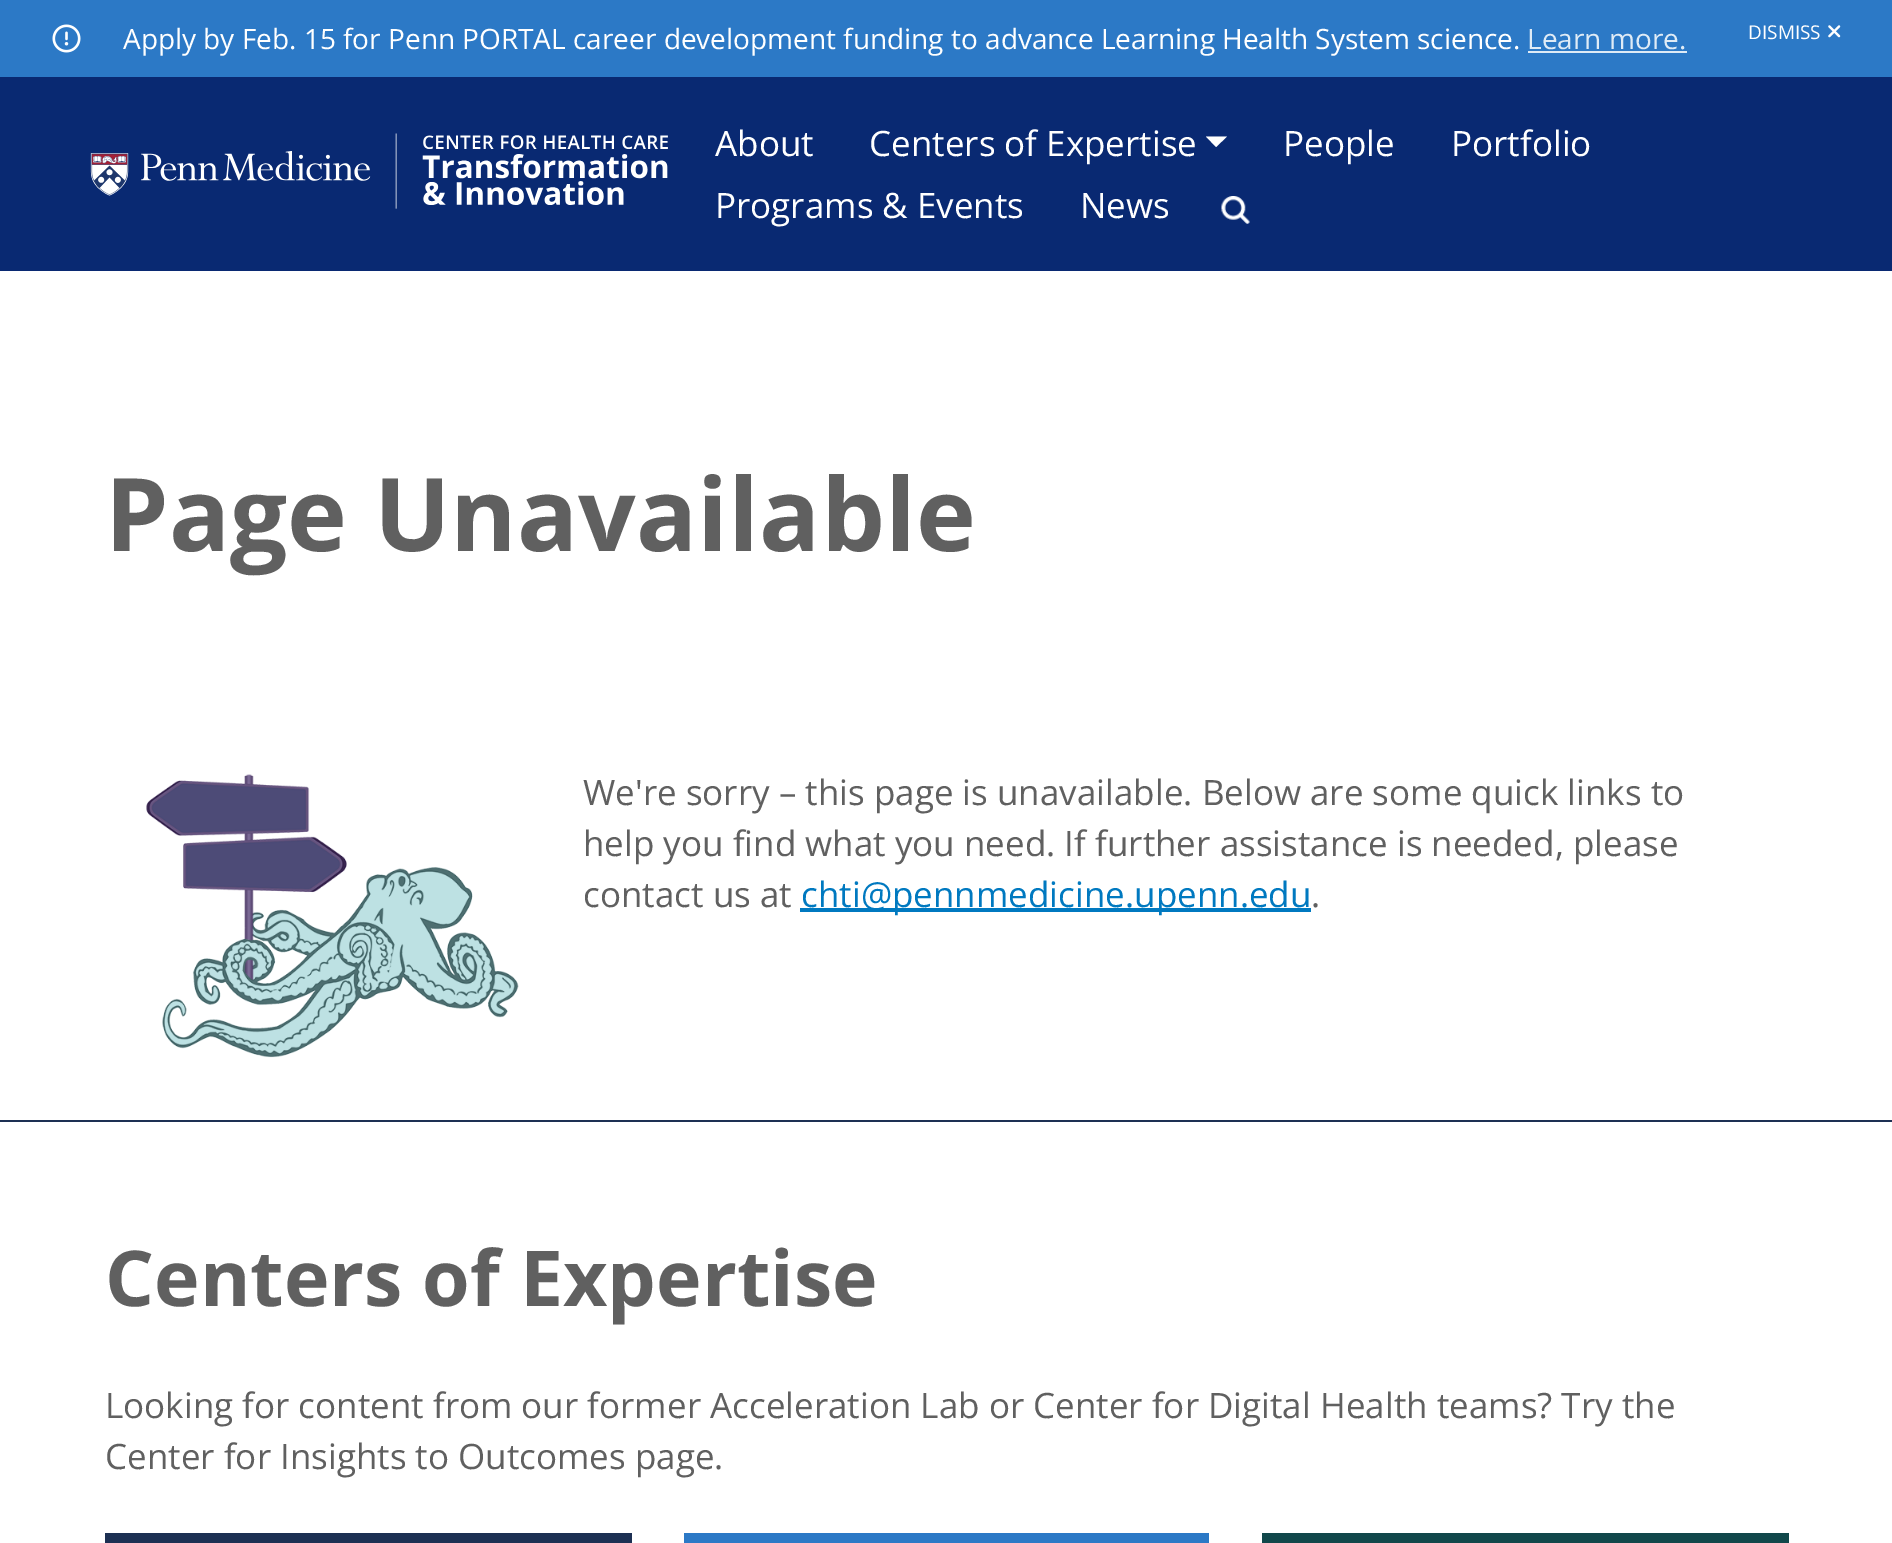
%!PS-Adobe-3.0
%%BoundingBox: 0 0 1892 1543
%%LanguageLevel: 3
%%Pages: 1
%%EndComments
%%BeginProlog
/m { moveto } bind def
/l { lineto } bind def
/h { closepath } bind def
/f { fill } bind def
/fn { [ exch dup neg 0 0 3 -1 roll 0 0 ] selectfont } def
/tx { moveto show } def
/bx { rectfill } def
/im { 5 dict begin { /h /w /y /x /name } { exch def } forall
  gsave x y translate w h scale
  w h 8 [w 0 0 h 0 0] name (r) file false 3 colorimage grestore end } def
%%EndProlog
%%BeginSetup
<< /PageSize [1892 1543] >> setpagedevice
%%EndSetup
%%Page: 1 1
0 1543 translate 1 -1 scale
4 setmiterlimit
1 setgray
0 0 1892 1543 bx
0.173 0.475 0.776 setrgbcolor
0 0 1892 77 bx
(image0.raw) 52 24 29 29 im
/OpenSans-Regular 28 fn
1 setgray
(Apply by Feb. 15 for Penn PORTAL career development funding to advance Learning Health System science.) 123 49 tx
0.875 0.922 0.965 setrgbcolor
(Learn more.) 1527 49 tx
1528 51 159 2 bx
/OpenSans-Regular 19 fn
1 setgray
(DISMISS) 1748 39 tx
(image1.raw) 1828 25 13 13 im
0.035 0.161 0.447 setrgbcolor
0 77 1892 194 bx
(image2.raw) 90 133 578 76 im
/OpenSans-Regular 35 fn
1 setgray
(About) 715 156 tx
(Centers of Expertise) 869 156 tx
1206 136.5 m 1227 136.5 l 1216 147 l h f
(People) 1283 156 tx
(Portfolio) 1451 156 tx
(Programs & Events) 715 218 tx
(News) 1080 218 tx
(image3.raw) 1221 196 29 28 im
/OpenSans-Bold 101.5 fn
0.376 setgray
(Page Unavailable) 105 551 tx
(image4.raw) 146 774 373 284 im
/OpenSans-Regular 35 fn
(We're sorry – this page is unavailable. Below are some quick links to) 583 805 tx
(help you find what you need. If further assistance is needed, please) 583 856 tx
(contact us at) 583 907 tx
0 0.475 0.753 setrgbcolor
800 908 511 4 bx
(chti@pennmedicine.upenn.edu) 801 907 tx
0.376 setgray
(.) 1311 907 tx
0.114 0.188 0.325 setrgbcolor
0 1120 1892 2 bx
/OpenSans-Bold 77 fn
0.376 setgray
(Centers of Expertise) 105 1306 tx
/OpenSans-Regular 35 fn
(Looking for content from our former Acceleration Lab or Center for Digital Health teams? Try the) 105 1418 tx
(Center for Insights to Outcomes page.) 105 1469 tx
0.114 0.188 0.325 setrgbcolor
105 1533 527 10 bx
0.173 0.475 0.776 setrgbcolor
684 1533 525 10 bx
0.067 0.282 0.294 setrgbcolor
1262 1533 527 10 bx
showpage
%%EOF
